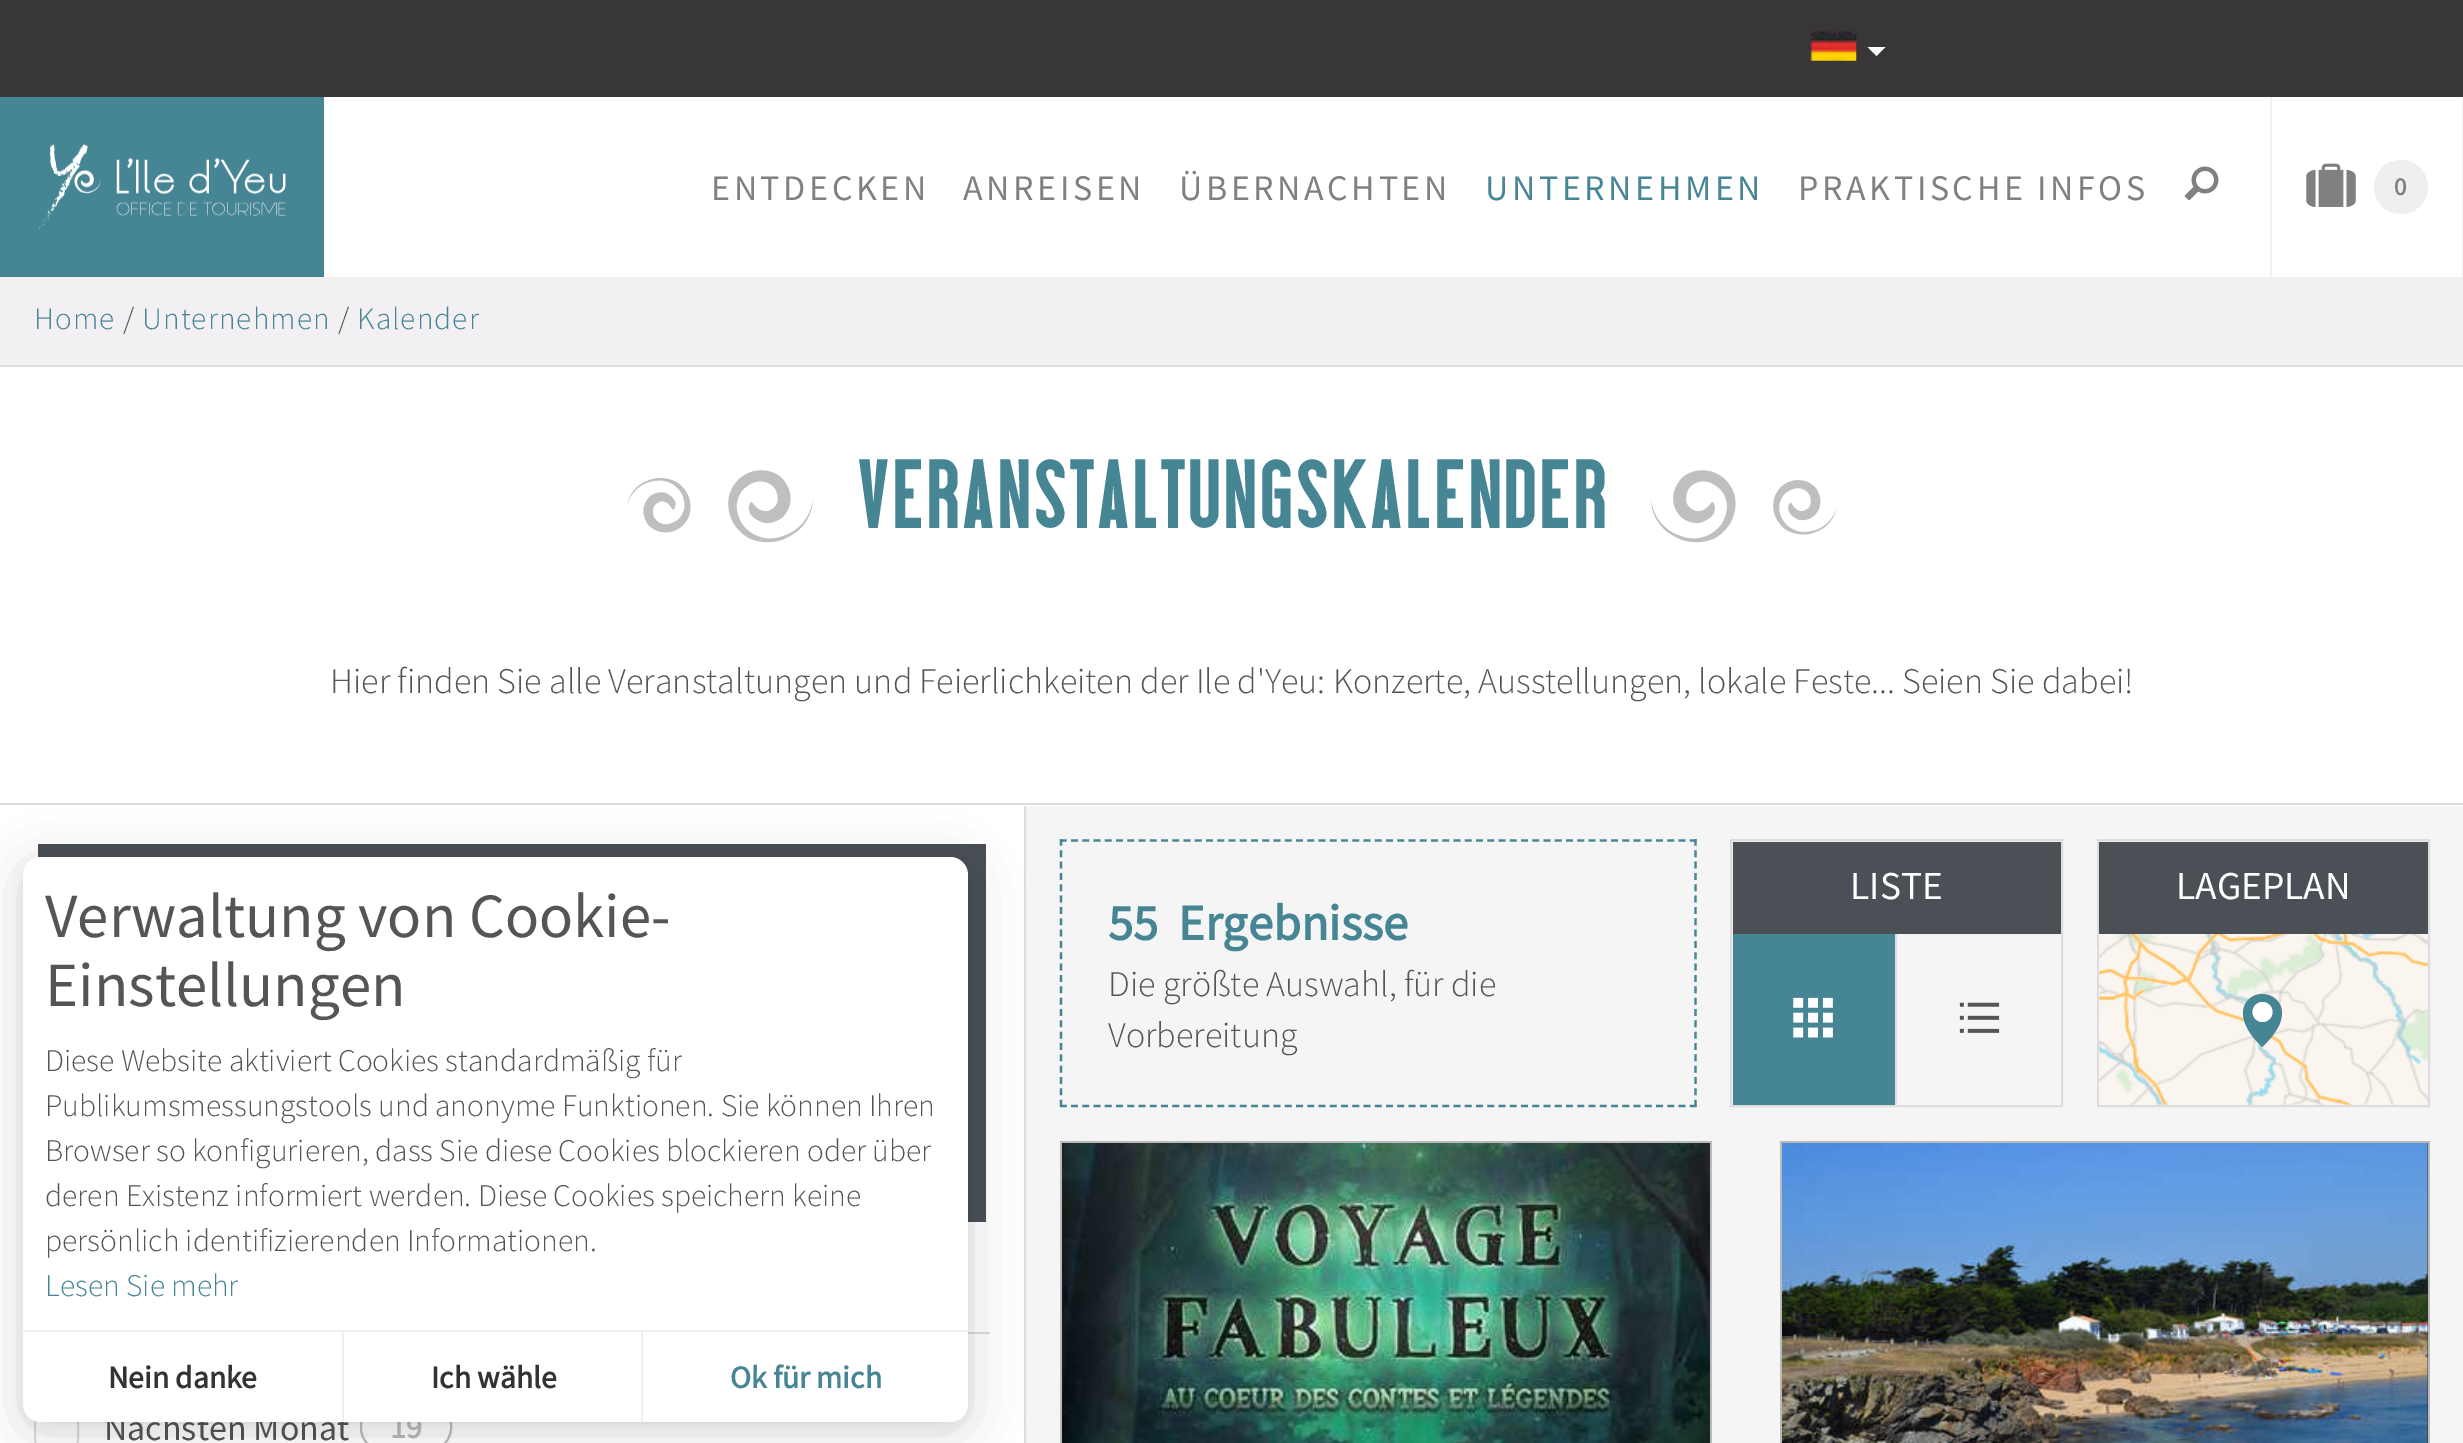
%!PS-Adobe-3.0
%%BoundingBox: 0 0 2463 1443
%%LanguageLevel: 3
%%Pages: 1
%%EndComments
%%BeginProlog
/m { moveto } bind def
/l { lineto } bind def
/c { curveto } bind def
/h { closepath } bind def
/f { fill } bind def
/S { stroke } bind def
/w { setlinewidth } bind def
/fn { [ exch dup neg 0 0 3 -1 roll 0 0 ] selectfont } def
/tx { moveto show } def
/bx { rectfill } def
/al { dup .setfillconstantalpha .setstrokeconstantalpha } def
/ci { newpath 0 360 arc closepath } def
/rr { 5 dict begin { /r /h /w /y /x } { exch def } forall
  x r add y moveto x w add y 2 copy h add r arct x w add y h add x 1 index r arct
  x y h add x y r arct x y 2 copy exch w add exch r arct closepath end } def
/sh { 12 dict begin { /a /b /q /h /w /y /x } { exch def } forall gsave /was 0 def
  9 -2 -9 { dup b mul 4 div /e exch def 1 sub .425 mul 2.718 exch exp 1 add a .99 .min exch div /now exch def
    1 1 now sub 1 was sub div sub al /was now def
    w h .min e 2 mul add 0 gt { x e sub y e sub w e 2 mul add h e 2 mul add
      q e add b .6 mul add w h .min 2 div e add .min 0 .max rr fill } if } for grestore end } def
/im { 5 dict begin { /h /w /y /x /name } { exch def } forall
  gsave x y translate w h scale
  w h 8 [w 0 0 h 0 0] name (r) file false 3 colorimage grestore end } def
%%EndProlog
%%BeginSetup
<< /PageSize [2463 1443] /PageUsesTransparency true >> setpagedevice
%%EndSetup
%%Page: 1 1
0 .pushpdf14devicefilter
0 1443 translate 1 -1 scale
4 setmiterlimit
0.961 setgray
0 0 2463 1443 bx
0.224 0.212 0.22 setrgbcolor
0 0 2463 97 bx
(image0.raw) 1810 31 47 30 im
1 setgray
1867.5 47 m 1885.5 47 l 1876.5 56 l h f
324 97 2138 180 bx
0.275 0.522 0.58 setrgbcolor
0 97 324 180 bx
(image1.raw) 39 143 247 86 im
/SourceSansPro-Regular 36 fn
0.502 setgray
711 200 m 3.6 0 (ENTDECKEN) ashow
963 200 m 3.6 0 (ANREISEN) ashow
1179 200 m 3.6 0 (ÜBERNACHTEN) ashow
0.275 0.522 0.58 setrgbcolor
1485 200 m 3.6 0 (UNTERNEHMEN) ashow
0.502 setgray
1798 200 m 3.6 0 (PRAKTISCHE INFOS) ashow
(image2.raw) 2184 166 35 35 im
0.949 0.941 0.949 setrgbcolor
2462 97 1 180 bx
2270 97 2 180 bx
(image3.raw) 2306 163 50 44 im
0.937 setgray
2401 187 27 ci f
/SourceSansPro-Bold 25 fn
0.502 setgray
(0) 2394 195 tx
0.949 0.941 0.949 setrgbcolor
0 277 2463 88 bx
/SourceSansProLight-Light 31.25 fn
0.275 0.522 0.58 setrgbcolor
34 329 m 1.1 0 (Home) ashow
0.333 setgray
123 329 m 1.1 0 (/) ashow
0.275 0.522 0.58 setrgbcolor
142 329 m 1.1 0 (Unternehmen) ashow
0.333 setgray
338 329 m 1.1 0 (/) ashow
0.275 0.522 0.58 setrgbcolor
357 329 m 1.1 0 (Kalender) ashow
1 setgray
0 367 2463 439 bx
0.867 setgray
0 365 2463 2 bx
0 803 2463 2 bx
(image4.raw) 627 470 186 73 im
/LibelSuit-Bold 92.25 fn
0.275 0.522 0.58 setrgbcolor
856 528 m 3.7 0 (VERANSTALTUNGSKALENDER) ashow
(image5.raw) 1651 470 186 73 im
/SourceSansProLight-Light 36 fn
0.333 setgray
(Hier finden Sie alle Veranstaltungen und Feierlichkeiten der Ile d'Yeu: Konzerte, Ausstellungen, lokale Feste... Seien Sie dabei!) 330 693 tx
0.867 setgray
2 w
1731 840 331 266 rectstroke
0.294 0.314 0.337 setrgbcolor
1733 842 328 92 bx
/SourceSansPro-Regular 39.5 fn
1 setgray
(LISTE) 1850 899 tx
0.275 0.522 0.58 setrgbcolor
1733 934 162 171 bx
(image6.raw) 1793 997 40 41 im
0.867 setgray
1895 934 2 171 bx
(image7.raw) 1959 1002 41 31 im
2098 840 331 266 rectstroke
0.294 0.314 0.337 setrgbcolor
2099 842 329 92 bx
1 setgray
(LAGEPLAN) 2176 899 tx
(image8.raw) 2099 934 329 171 im
0.275 0.522 0.58 setrgbcolor
2262 994 m 2273 994 2282 1002 2282 1013 c 2282 1024 2274 1036 2262 1047 c 2250 1035 2243 1024 2243 1013 c 2243 1002 2252 994 2262 994 c h f
1 setgray
2262.5 1012 10 ci f
0.275 0.522 0.58 setrgbcolor
2.2 w
[6.75 4.5] 0 setdash
1060 840.5 m 1696.5 840.5 l S
[6.75 4.59] 0 setdash
1695.5 839 m 1695.5 1107 l S
[6.75 4.5] 0 setdash
1060 1106 m 1696.5 1106 l S
[6.75 4.59] 0 setdash
1061 839 m 1061 1107 l S
/SourceSansPro-Bold 50.5 fn
(55) 1108 940 tx
(Ergebnisse) 1178 940 tx
/SourceSansProLight-Light 36 fn
0.333 setgray
(Die größte Auswahl, für die) 1108 996 tx
(Vorbereitung) 1108 1047 tx
0.729 setgray
1060 1141 652 2 bx
1710 1141 2 302 bx
1060 1141 2 302 bx
(image9.raw) 1062 1143 648 300 im
0.18 0.169 0.169 setrgbcolor
2427 1143 1 300 bx
0.729 setgray
1780 1141 650 2 bx
2428 1141 2 302 bx
1780 1141 2 302 bx
(image10.raw) 1782 1143 646 300 im
1 setgray
0 806 1024 637 bx
0.867 setgray
1024 806 2 637 bx
0.294 0.314 0.337 setrgbcolor
38 844 948 378 bx
0.867 setgray
968 1332 22 2 bx
2 w
[] 0 setdash
35 1405 43 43 8 rr S
/SourceSansPro-Regular 36 fn
0.333 setgray
(Nächsten Monat) 104 1440 tx
0.733 setgray
361 1403 90 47 22 rr S
/SourceSansPro-Bold 32 fn
(19) 390 1438 tx
0 setgray
23 862 945 565 18 7 0.05 sh
23 866 945 565 18 27 0.15 sh
1 setgray
23 857 945 565 18 rr f
/SourceSansPro-Regular 63 fn
0.333 setgray
(Verwaltung von Cookie-) 45 937 tx
(Einstellungen) 45 1006 tx
/SourceSansProLight-Light 31.5 fn
(Diese Website aktiviert Cookies standardmäßig für) 45 1071 tx
(Publikumsmessungstools und anonyme Funktionen. Sie können Ihren) 45 1116 tx
(Browser so konfigurieren, dass Sie diese Cookies blockieren oder über) 45 1161 tx
(deren Existenz informiert werden. Diese Cookies speichern keine) 45 1206 tx
(persönlich identifizierenden Informationen.) 45 1251 tx
0.275 0.522 0.58 setrgbcolor
(Lesen Sie mehr) 45 1296 tx
0.937 setgray
23 1330 945 2 bx
342 1332 2 90 bx
/SourceSansPro-Bold 31.5 fn
0.2 setgray
(Nein danke) 108 1388 tx
0.937 setgray
641 1332 2 90 bx
0.2 setgray
(Ich wähle) 431 1388 tx
0.275 0.522 0.58 setrgbcolor
(Ok für mich) 730 1388 tx
.poppdf14devicefilter showpage
%%EOF
